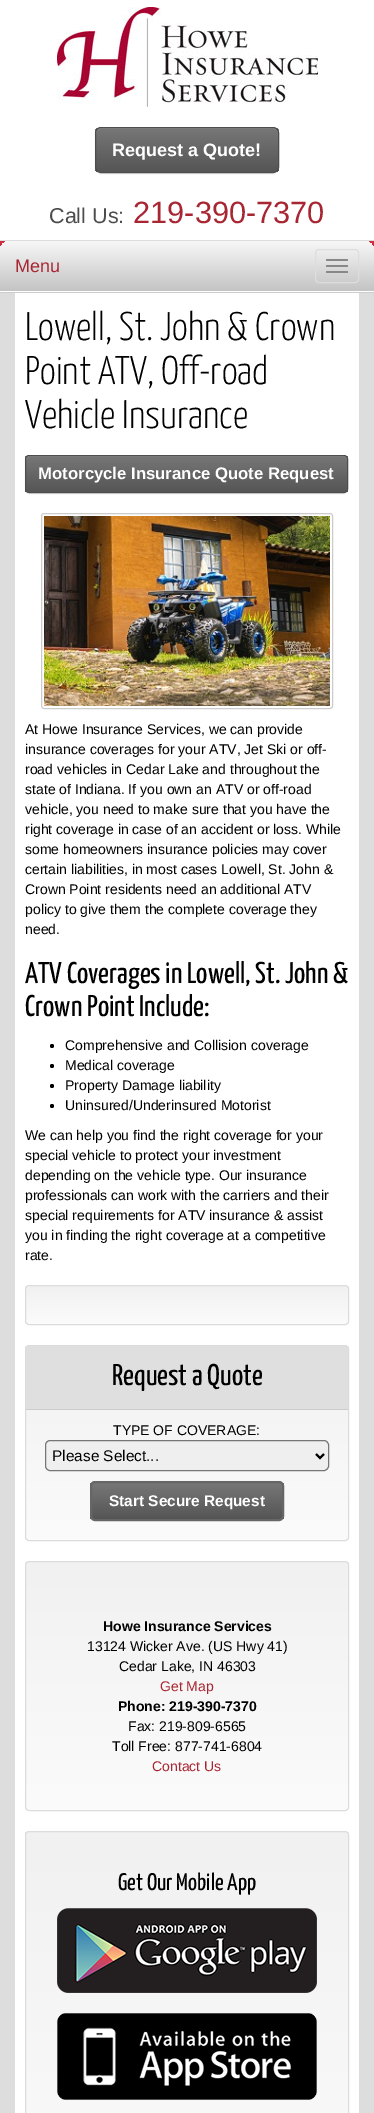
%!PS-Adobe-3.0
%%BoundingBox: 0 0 374 2113
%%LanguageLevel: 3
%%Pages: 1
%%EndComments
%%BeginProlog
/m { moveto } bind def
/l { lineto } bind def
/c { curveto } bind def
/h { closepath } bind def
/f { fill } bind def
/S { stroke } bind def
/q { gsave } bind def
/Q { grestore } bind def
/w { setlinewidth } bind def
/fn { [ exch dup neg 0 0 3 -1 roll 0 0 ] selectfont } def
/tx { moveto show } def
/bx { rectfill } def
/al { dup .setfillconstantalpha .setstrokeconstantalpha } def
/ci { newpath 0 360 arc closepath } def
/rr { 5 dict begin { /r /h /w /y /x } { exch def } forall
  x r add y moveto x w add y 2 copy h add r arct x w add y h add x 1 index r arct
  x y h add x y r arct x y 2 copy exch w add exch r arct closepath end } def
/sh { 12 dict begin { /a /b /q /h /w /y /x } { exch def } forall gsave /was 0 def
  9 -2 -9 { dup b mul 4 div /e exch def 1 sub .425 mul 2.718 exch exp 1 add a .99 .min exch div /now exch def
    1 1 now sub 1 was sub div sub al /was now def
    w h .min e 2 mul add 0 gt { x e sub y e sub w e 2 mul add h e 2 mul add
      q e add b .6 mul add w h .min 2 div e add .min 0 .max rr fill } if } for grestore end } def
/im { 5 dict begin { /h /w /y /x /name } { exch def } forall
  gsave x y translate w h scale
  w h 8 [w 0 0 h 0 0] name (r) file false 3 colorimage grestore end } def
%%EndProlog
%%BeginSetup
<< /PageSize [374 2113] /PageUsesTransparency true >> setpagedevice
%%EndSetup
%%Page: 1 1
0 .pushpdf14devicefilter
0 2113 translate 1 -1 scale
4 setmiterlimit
1 setgray
0 0 374 2113 bx
(image0.raw) 57 7 261 100 im
0 setgray
95 128 184 46 6 0.5 0.07 sh
q
95 127 184 46 6 rr clip newpath
q 95 128 m 279 128 l 279 172 l 95 172 l h clip newpath
<< /ShadingType 2 /ColorSpace /DeviceRGB /Coords [187 128 187 172] /Extend [true true] /Function << /FunctionType 2 /Domain [0 1] /C0 [0.467 0.467 0.467] /C1 [0.333 0.333 0.333] /N 1 >> >> shfill Q
Q
0.545 setgray
101 129 m 273 129 l 276 129 278 131 278 134 c 278 131 277 129 274 128 c 100 128 l 97 129 96 131 96 134 c 96 131 98 129 101 129 c h f
0.302 setgray
95.5 127.5 183 45 5.5 rr S
/LiberationSans-Bold 18 fn
1 setgray
(Request a Quote!) 112 156 tx
/LiberationSans-Regular 21.5 fn
0.302 setgray
(Call Us:) 49 223 tx
/LiberationSans-Regular 30.75 fn
0.659 0.145 0.196 setrgbcolor
(219-390-7370) 133 223 tx
q 0 241 m 374 241 l 374 251 l 0 251 l h clip newpath
<< /ShadingType 2 /ColorSpace /DeviceRGB /Coords [187 241 187 291] /Extend [true true] /Function << /FunctionType 2 /Domain [0 1] /C0 [0.82 0.184 0.247] /C1 [0.494 0.11 0.149] /N 1 >> >> shfill Q
0.867 setgray
0 240 374 1 bx
q 10 241 m 364 241 l 369.5 241 374 245.5 374 251 c 374 291 l 0 291 l 0 251 l 0 245.5 4.5 241 10 241 c h clip newpath
<< /ShadingType 2 /ColorSpace /DeviceRGB /Coords [187 241 187 291] /Extend [true true] /Function << /FunctionType 2 /Domain [0 1] /C0 [0.969 0.969 0.969] /C1 [0.769 0.769 0.769] /N 1 >> >> shfill Q
/LiberationSans-Regular 18 fn
0.659 0.145 0.196 setrgbcolor
(Menu) 15 272 tx
0.867 setgray
315.5 249.5 43 33 3.5 rr S
0.533 setgray
326 259 22 2 1 rr f
326 265 22 2 1 rr f
326 271 22 2 1 rr f
0.867 setgray
0 293 374 1820 bx
0.8 setgray
0 292 374 1 bx
1 setgray
15 293 344 1820 bx
/YanoneKaffeesatz-Light 40 fn
0 setgray
(Lowell, St. John & Crown) 25 340 tx
(Point ATV, Off-road) 25 384 tx
(Vehicle Insurance) 25 428 tx
25 456 323 38 4 0.5 0.07 sh
q
25 455 323 38 4 rr clip newpath
q 25 456 m 348 456 l 348 492 l 25 492 l h clip newpath
<< /ShadingType 2 /ColorSpace /DeviceRGB /Coords [187 456 187 492] /Extend [true true] /Function << /FunctionType 2 /Domain [0 1] /C0 [0.467 0.467 0.467] /C1 [0.333 0.333 0.333] /N 1 >> >> shfill Q
Q
0.545 setgray
29 457 m 344 457 l 346 457 347 458 347 460 c 346 457 l 345 456 l 29 456 l 27 456 26 458 26 460 c 26 458 27 457 29 457 c h f
0.302 setgray
25.5 455.5 322 37 3.5 rr S
/LiberationSans-Bold 16.75 fn
1 setgray
(Motorcycle Insurance Quote Request) 38 479 tx
0.8 setgray
41.5 513.5 291 195 2.5 rr S
(image1.raw) 44 516 286 190 im
/LiberationSans-Regular 14 fn
0 setgray
(At Howe Insurance Services, we can provide) 25 734 tx
(insurance coverages for your ATV, Jet Ski or off-) 25 754 tx
(road vehicles in Cedar Lake and throughout the) 25 774 tx
(state of Indiana. If you own an ATV or off-road) 25 794 tx
(vehicle, you need to make sure that you have the) 25 814 tx
(right coverage in case of an accident or loss. While) 25 834 tx
(some homeowners insurance policies may cover) 25 854 tx
(certain liabilities, in most cases Lowell, St. John &) 25 874 tx
(Crown Point residents need an additional ATV) 25 894 tx
(policy to give them the complete coverage they) 25 914 tx
(need.) 25 934 tx
/YanoneKaffeesatz-Regular 30 fn
(ATV Coverages in Lowell, St. John &) 25 983 tx
(Crown Point Include:) 25 1016 tx
52 1046 2 ci f
/LiberationSans-Regular 14 fn
(Comprehensive and Collision coverage) 65 1050 tx
52 1066 2 ci f
(Medical coverage) 65 1070 tx
52 1086 2 ci f
(Property Damage liability) 65 1090 tx
52 1106 2 ci f
(Uninsured/Underinsured Motorist) 65 1110 tx
(We can help you find the right coverage for your) 25 1140 tx
(special vehicle to protect your investment) 25 1160 tx
(depending on the vehicle type. Our insurance) 25 1180 tx
(professionals can work with the carriers and their) 25 1200 tx
(special requirements for ATV insurance & assist) 25 1220 tx
(you in finding the right coverage at a competitive) 25 1240 tx
(rate.) 25 1260 tx
q
25 1285 324 40 4 rr clip newpath
q 25 1286 m 349 1286 l 349 1324 l 25 1324 l h clip newpath
<< /ShadingType 2 /ColorSpace /DeviceRGB /Coords [187 1286 187 1324] /Extend [true true] /Function << /FunctionType 2 /Domain [0 1] /C0 [0.945 0.945 0.945] /C1 [0.984 0.984 0.984] /N 1 >> >> shfill Q
Q
0.863 setgray
25.5 1285.5 323 39 3.5 rr S
q
25 1345 324 196 4 rr clip newpath
q 25 1346 m 349 1346 l 349 1540 l 25 1540 l h clip newpath
<< /ShadingType 2 /ColorSpace /DeviceRGB /Coords [187 1346 187 1540] /Extend [true true] /Function << /FunctionType 2 /Domain [0 1] /C0 [0.945 0.945 0.945] /C1 [0.984 0.984 0.984] /N 1 >> >> shfill Q
Q
25.5 1345.5 323 195 3.5 rr S
0.875 setgray
26 1346 322 63 bx
0.8 setgray
26 1409 322 1 bx
/YanoneKaffeesatz-Regular 30 fn
0 setgray
(Request a Quote) 112 1385 tx
/LiberationSans-Regular 14 fn
(TYPE OF COVERAGE:) 113 1435 tx
0.937 setgray
45.5 1440.5 283 30 4.5 rr q f Q
0.463 setgray
S
0 setgray
2 w
316 1454 m 320 1458 l 324 1454 l S
/LiberationSans-Regular 15.4 fn
(Please Select...) 52 1461 tx
q
90 1481 194 40 5 rr clip newpath
q 90 1483 m 284 1483 l 284 1519 l 90 1519 l h clip newpath
<< /ShadingType 2 /ColorSpace /DeviceRGB /Coords [187 1483 187 1519] /Extend [true true] /Function << /FunctionType 2 /Domain [0 1] /C0 [0.467 0.467 0.467] /C1 [0.333 0.333 0.333] /N 1 >> >> shfill Q
Q
0.4 setgray
91 1482 192 38 4 rr S
/LiberationSans-Bold 15.4 fn
1 setgray
(Start Secure Request) 109 1506 tx
q
25 1561 324 250 4 rr clip newpath
q 25 1562 m 349 1562 l 349 1810 l 25 1810 l h clip newpath
<< /ShadingType 2 /ColorSpace /DeviceRGB /Coords [187 1562 187 1810] /Extend [true true] /Function << /FunctionType 2 /Domain [0 1] /C0 [0.945 0.945 0.945] /C1 [0.984 0.984 0.984] /N 1 >> >> shfill Q
Q
0.863 setgray
1 w
25.5 1561.5 323 249 3.5 rr S
/LiberationSans-Bold 14 fn
0 setgray
(Howe Insurance Services) 103 1631 tx
/LiberationSans-Regular 14 fn
(13124 Wicker Ave. \(US Hwy 41\)) 87 1651 tx
(Cedar Lake, IN 46303) 119 1671 tx
0.659 0.145 0.196 setrgbcolor
(Get Map) 160 1691 tx
/LiberationSans-Bold 14 fn
0 setgray
(Phone: 219-390-7370) 118 1711 tx
/LiberationSans-Regular 14 fn
(Fax: 219-809-6565) 128 1731 tx
(Toll Free: 877-741-6804) 112 1751 tx
0.659 0.145 0.196 setrgbcolor
(Contact Us) 152 1771 tx
q
25 1831 324 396 4 rr clip newpath
q 25 1832 m 349 1832 l 349 2113 l 25 2113 l h clip newpath
<< /ShadingType 2 /ColorSpace /DeviceRGB /Coords [187 1832 187 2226] /Extend [true true] /Function << /FunctionType 2 /Domain [0 1] /C0 [0.945 0.945 0.945] /C1 [0.984 0.984 0.984] /N 1 >> >> shfill Q
Q
0.863 setgray
25.5 1831.5 323 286 3.5 rr S
/YanoneKaffeesatz-Regular 24 fn
0 setgray
(Get Our Mobile App) 118 1890 tx
(image2.raw) 57 1908 260 85 im
(image3.raw) 57 2013 260 87 im
.poppdf14devicefilter showpage
%%EOF
